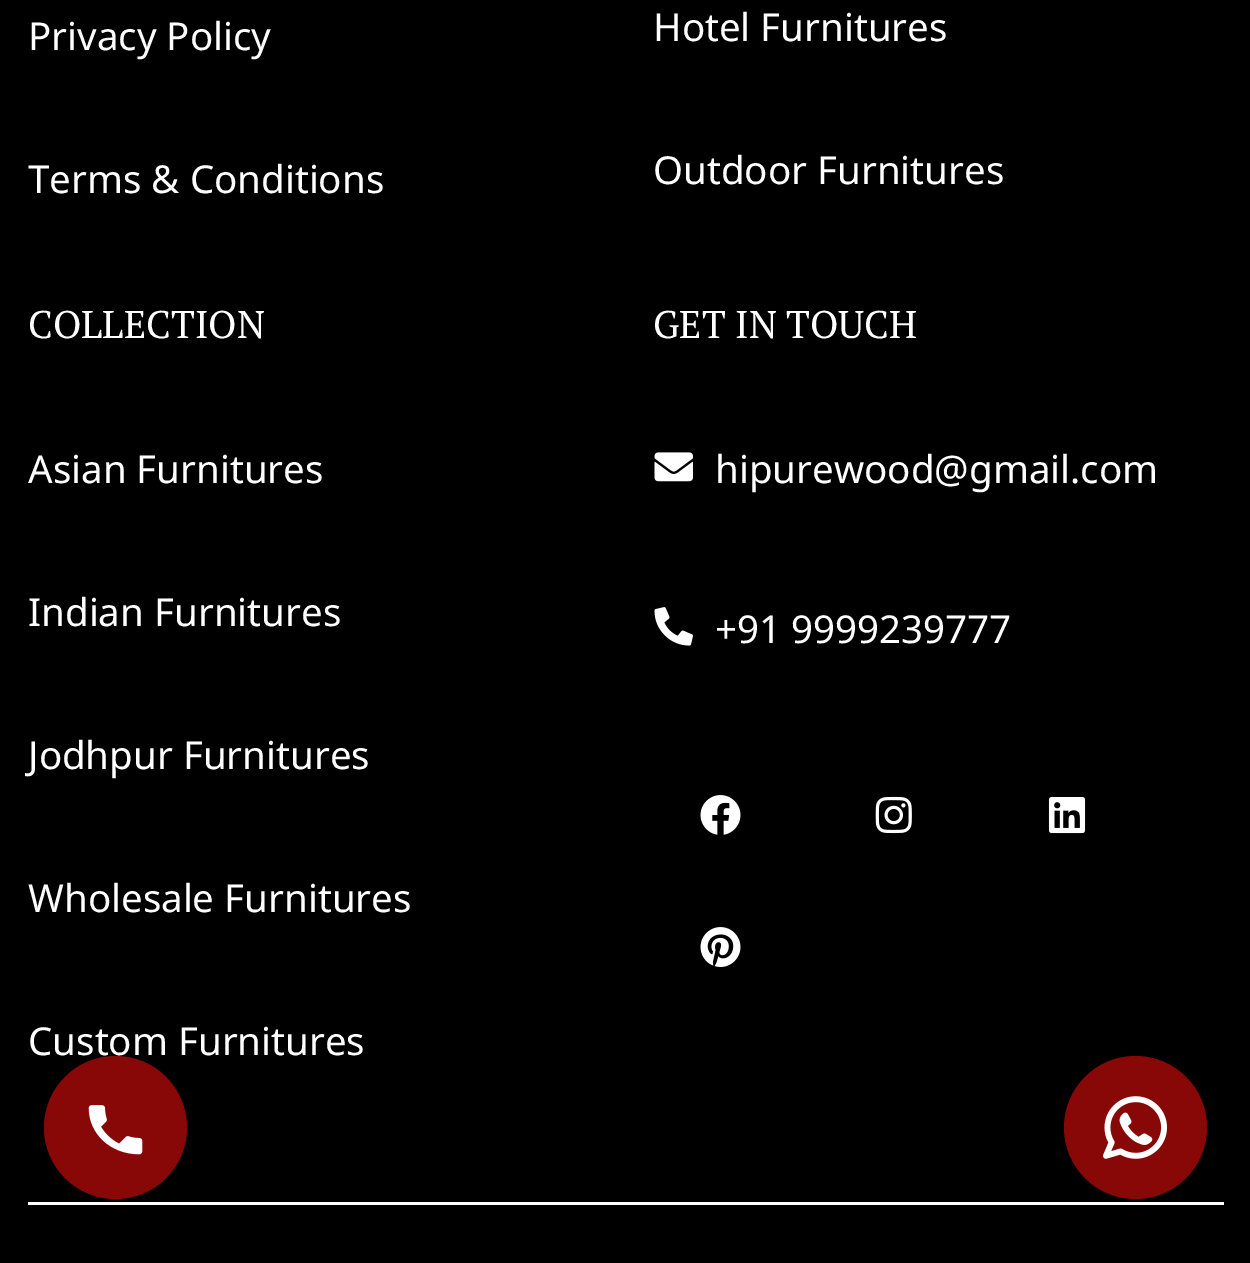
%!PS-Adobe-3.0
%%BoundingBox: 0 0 1250 1263
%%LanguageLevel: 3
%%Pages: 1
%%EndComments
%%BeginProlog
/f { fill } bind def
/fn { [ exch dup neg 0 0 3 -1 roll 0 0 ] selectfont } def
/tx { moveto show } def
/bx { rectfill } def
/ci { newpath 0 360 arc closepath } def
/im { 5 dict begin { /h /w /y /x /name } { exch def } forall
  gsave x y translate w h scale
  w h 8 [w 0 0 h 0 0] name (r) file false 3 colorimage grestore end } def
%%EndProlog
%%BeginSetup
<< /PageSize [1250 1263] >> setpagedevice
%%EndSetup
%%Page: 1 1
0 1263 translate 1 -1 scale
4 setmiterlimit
0 setgray
0 0 1250 1263 bx
/NotoSans-Regular 38.5 fn
1 setgray
(Privacy Policy) 28 50 tx
(Terms & Conditions) 28 193 tx
(Hotel Furnitures) 653 41 tx
(Outdoor Furnitures) 653 184 tx
/PTSerif-Regular 38.5 fn
(COLLECTION) 28 338 tx
/NotoSans-Regular 38.5 fn
(Asian Furnitures) 28 483 tx
(Indian Furnitures) 28 626 tx
(Jodhpur Furnitures) 28 769 tx
(Wholesale Furnitures) 28 912 tx
(Custom Furnitures) 28 1055 tx
/PTSerif-Regular 38.5 fn
(GET IN TOUCH) 653 338 tx
(image0.raw) 654 452 39 30 im
/NotoSans-Regular 38.5 fn
(hipurewood@gmail.com) 715 483 tx
(image1.raw) 654 607 39 39 im
(+91 9999239777) 715 643 tx
(image2.raw) 700 795 41 40 im
(image3.raw) 875 796 37 38 im
(image4.raw) 1048 797 38 37 im
(image5.raw) 700 927 41 40 im
0.533 0.031 0.031 setrgbcolor
115.5 1127.5 71.5 ci f
(image6.raw) 88 1105 55 50 im
1135.5 1127.5 71.5 ci f
(image7.raw) 1103 1096 64 63 im
1 setgray
28 1202 1196 3 bx
showpage
%%EOF
